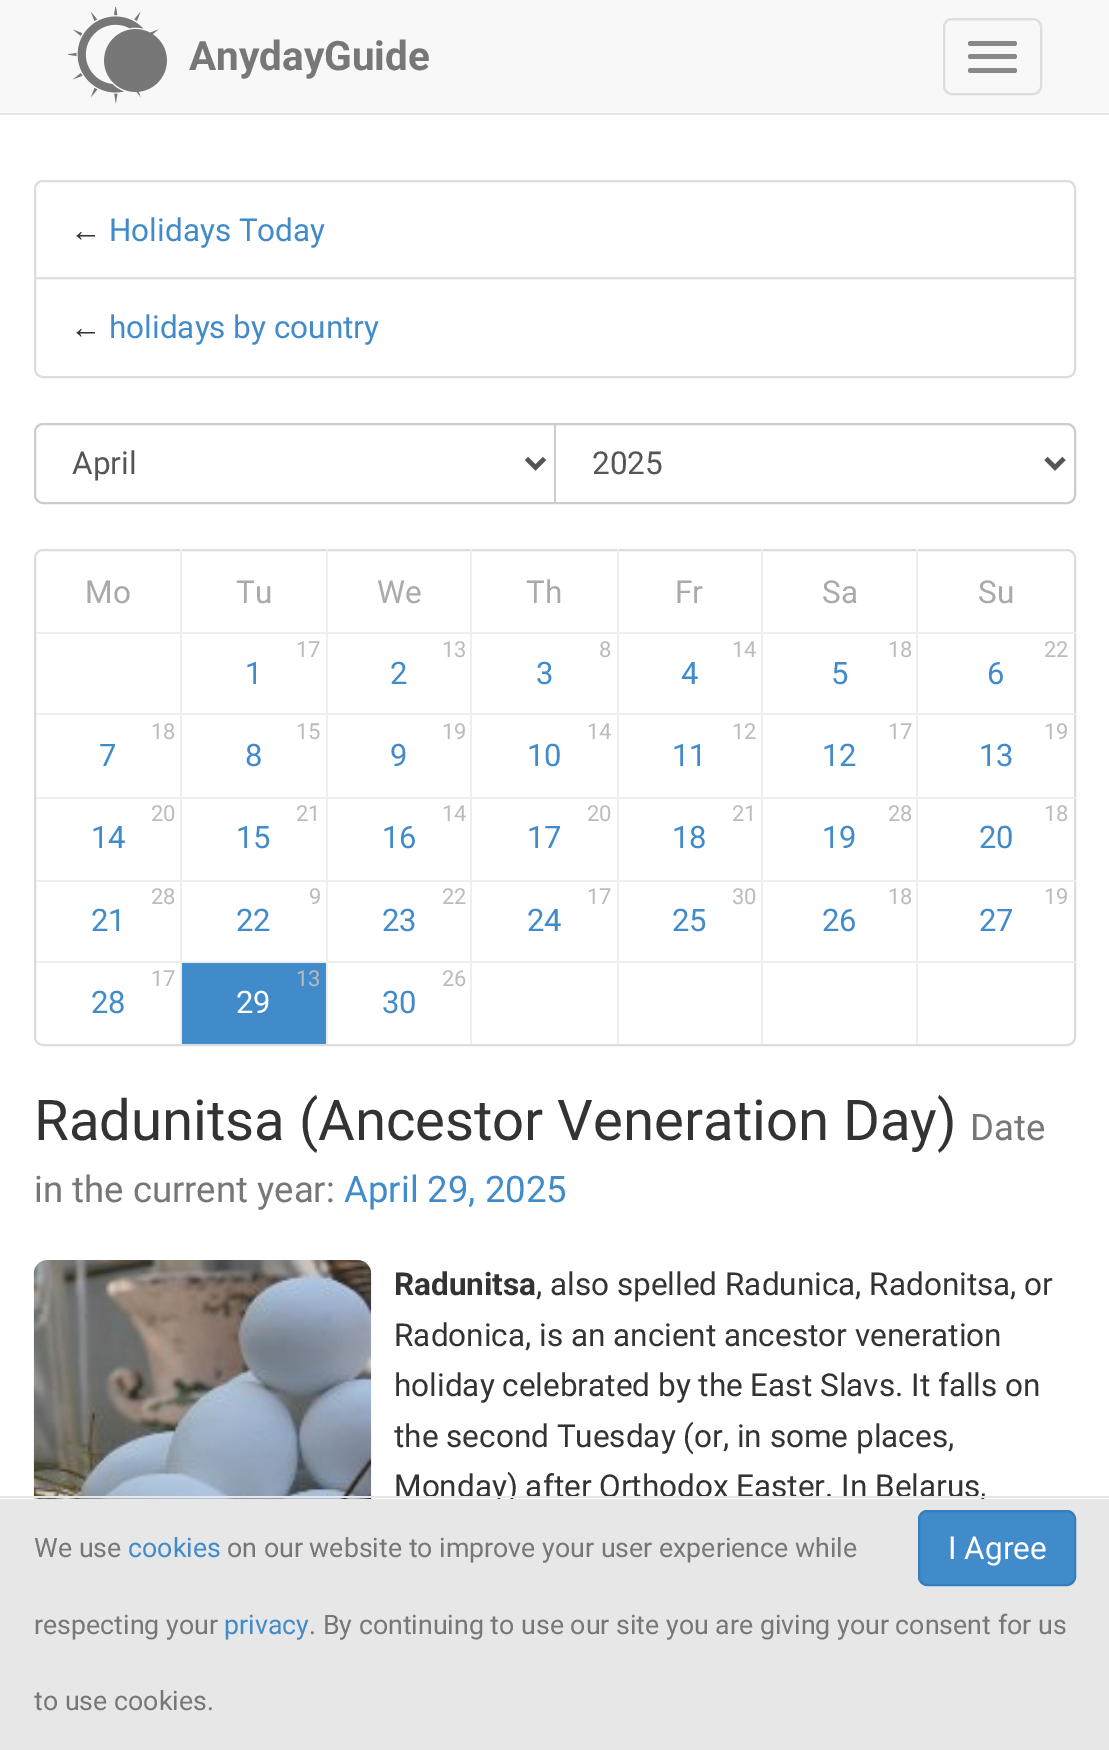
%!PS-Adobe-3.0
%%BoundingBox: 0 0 1109 1750
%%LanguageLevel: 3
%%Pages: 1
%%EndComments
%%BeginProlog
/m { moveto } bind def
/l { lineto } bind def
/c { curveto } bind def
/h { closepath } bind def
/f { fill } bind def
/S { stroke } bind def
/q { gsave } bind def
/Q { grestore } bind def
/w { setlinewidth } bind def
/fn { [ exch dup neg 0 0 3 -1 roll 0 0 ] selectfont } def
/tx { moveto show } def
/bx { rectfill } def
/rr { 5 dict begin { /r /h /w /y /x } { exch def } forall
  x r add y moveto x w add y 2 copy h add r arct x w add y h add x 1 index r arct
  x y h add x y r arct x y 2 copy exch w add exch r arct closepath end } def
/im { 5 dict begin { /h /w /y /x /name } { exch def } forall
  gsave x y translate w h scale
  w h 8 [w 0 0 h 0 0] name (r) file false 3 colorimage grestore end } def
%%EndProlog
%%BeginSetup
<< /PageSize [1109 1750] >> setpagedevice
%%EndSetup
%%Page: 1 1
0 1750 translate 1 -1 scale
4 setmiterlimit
1 setgray
0 0 1109 1750 bx
0.973 setgray
0 0 1109 113 bx
0.906 setgray
0 113 1109 2 bx
(image0.raw) 68 7 99 97 im
/Roboto-Bold 40.5 fn
0.467 setgray
(AnydayGuide) 189 70 tx
0.867 setgray
2 w
944 19 97 75 8 rr S
0.533 setgray
968 41 49 5 2.5 rr f
968 54 49 5 2.5 rr f
968 68 49 5 2.5 rr f
0.867 setgray
43 181 m 1067 181 l 1071.5 181 1075 184.5 1075 189 c 1075 278 l 35 278 l 35 189 l 35 184.5 38.5 181 43 181 c h S
/LiberationSans-Regular 31.5 fn
0.2 setgray
(←) 70 241 tx
/Roboto-Regular 31.5 fn
0.259 0.545 0.792 setrgbcolor
(Holidays Today) 109 241 tx
1 setgray
35 278 m 1075 278 l 1075 369 l 1075 373.5 1071.5 377 1067 377 c 43 377 l 38.5 377 35 373.5 35 369 c h q f Q
0.867 setgray
S
/LiberationSans-Regular 31.5 fn
0.2 setgray
(←) 70 338 tx
/Roboto-Regular 31.5 fn
0.259 0.545 0.792 setrgbcolor
(holidays by country) 109 338 tx
0.8 setgray
35 424 1040 79 8 rr S
554 425 2 77 bx
0.333 setgray
4.5 w
526.5 458.5 m 535.5 467.5 l 544.5 458.5 l S
(April) 72 474 tx
1046 458.5 m 1055 467.5 l 1064 458.5 l S
(2025) 592 474 tx
0.867 setgray
2 w
35 550 1040 495 8 rr S
0.667 setgray
(Mo) 85 603 tx
(Tu) 236 603 tx
(We) 377 603 tx
(Th) 526 603 tx
(Fr) 675 603 tx
(Sa) 822 603 tx
(Su) 978 603 tx
0.933 setgray
36 632 1040 2 bx
36 713 1040 2 bx
36 797 1040 2 bx
36 880 1040 2 bx
36 961 1040 2 bx
180 961 2 83 bx
180 880 2 83 bx
180 797 2 85 bx
180 713 2 86 bx
180 549 2 167 bx
326 961 2 83 bx
326 880 2 83 bx
326 797 2 85 bx
326 713 2 86 bx
326 549 2 167 bx
/Roboto-Regular 22 fn
0.733 setgray
(17) 296 657 tx
/Roboto-Regular 31 fn
0.259 0.545 0.792 setrgbcolor
(1) 245 684 tx
0.933 setgray
470 961 2 83 bx
470 880 2 83 bx
470 797 2 85 bx
470 713 2 86 bx
470 549 2 167 bx
/Roboto-Regular 22 fn
0.733 setgray
(13) 442 657 tx
/Roboto-Regular 31 fn
0.259 0.545 0.792 setrgbcolor
(2) 390 684 tx
0.933 setgray
617 961 2 83 bx
617 880 2 83 bx
617 797 2 85 bx
617 713 2 86 bx
617 549 2 167 bx
/Roboto-Regular 22 fn
0.733 setgray
(8) 599 657 tx
/Roboto-Regular 31 fn
0.259 0.545 0.792 setrgbcolor
(3) 536 684 tx
0.933 setgray
761 961 2 83 bx
761 880 2 83 bx
761 797 2 85 bx
761 713 2 86 bx
761 549 2 167 bx
/Roboto-Regular 22 fn
0.733 setgray
(14) 732 657 tx
/Roboto-Regular 31 fn
0.259 0.545 0.792 setrgbcolor
(4) 681 684 tx
0.933 setgray
916 961 2 83 bx
916 880 2 83 bx
916 797 2 85 bx
916 713 2 86 bx
916 549 2 167 bx
/Roboto-Regular 22 fn
0.733 setgray
(18) 888 657 tx
/Roboto-Regular 31 fn
0.259 0.545 0.792 setrgbcolor
(5) 831 684 tx
/Roboto-Regular 22 fn
0.733 setgray
(22) 1044 657 tx
/Roboto-Regular 31 fn
0.259 0.545 0.792 setrgbcolor
(6) 987 684 tx
/Roboto-Regular 22 fn
0.733 setgray
(18) 151 739 tx
/Roboto-Regular 31 fn
0.259 0.545 0.792 setrgbcolor
(7) 99 766 tx
/Roboto-Regular 22 fn
0.733 setgray
(15) 296 739 tx
/Roboto-Regular 31 fn
0.259 0.545 0.792 setrgbcolor
(8) 245 766 tx
/Roboto-Regular 22 fn
0.733 setgray
(19) 442 739 tx
/Roboto-Regular 31 fn
0.259 0.545 0.792 setrgbcolor
(9) 390 766 tx
/Roboto-Regular 22 fn
0.733 setgray
(14) 587 739 tx
/Roboto-Regular 31 fn
0.259 0.545 0.792 setrgbcolor
(10) 527 766 tx
/Roboto-Regular 22 fn
0.733 setgray
(12) 732 739 tx
/Roboto-Regular 31 fn
0.259 0.545 0.792 setrgbcolor
(11) 672 766 tx
/Roboto-Regular 22 fn
0.733 setgray
(17) 888 739 tx
/Roboto-Regular 31 fn
0.259 0.545 0.792 setrgbcolor
(12) 822 766 tx
/Roboto-Regular 22 fn
0.733 setgray
(19) 1044 739 tx
/Roboto-Regular 31 fn
0.259 0.545 0.792 setrgbcolor
(13) 979 766 tx
/Roboto-Regular 22 fn
0.733 setgray
(20) 151 821 tx
/Roboto-Regular 31 fn
0.259 0.545 0.792 setrgbcolor
(14) 91 848 tx
/Roboto-Regular 22 fn
0.733 setgray
(21) 296 821 tx
/Roboto-Regular 31 fn
0.259 0.545 0.792 setrgbcolor
(15) 236 848 tx
/Roboto-Regular 22 fn
0.733 setgray
(14) 442 821 tx
/Roboto-Regular 31 fn
0.259 0.545 0.792 setrgbcolor
(16) 382 848 tx
/Roboto-Regular 22 fn
0.733 setgray
(20) 587 821 tx
/Roboto-Regular 31 fn
0.259 0.545 0.792 setrgbcolor
(17) 527 848 tx
/Roboto-Regular 22 fn
0.733 setgray
(21) 732 821 tx
/Roboto-Regular 31 fn
0.259 0.545 0.792 setrgbcolor
(18) 672 848 tx
/Roboto-Regular 22 fn
0.733 setgray
(28) 888 821 tx
/Roboto-Regular 31 fn
0.259 0.545 0.792 setrgbcolor
(19) 822 848 tx
/Roboto-Regular 22 fn
0.733 setgray
(18) 1044 821 tx
/Roboto-Regular 31 fn
0.259 0.545 0.792 setrgbcolor
(20) 979 848 tx
/Roboto-Regular 22 fn
0.733 setgray
(28) 151 904 tx
/Roboto-Regular 31 fn
0.259 0.545 0.792 setrgbcolor
(21) 91 931 tx
/Roboto-Regular 22 fn
0.733 setgray
(9) 309 904 tx
/Roboto-Regular 31 fn
0.259 0.545 0.792 setrgbcolor
(22) 236 931 tx
/Roboto-Regular 22 fn
0.733 setgray
(22) 442 904 tx
/Roboto-Regular 31 fn
0.259 0.545 0.792 setrgbcolor
(23) 382 931 tx
/Roboto-Regular 22 fn
0.733 setgray
(17) 587 904 tx
/Roboto-Regular 31 fn
0.259 0.545 0.792 setrgbcolor
(24) 527 931 tx
/Roboto-Regular 22 fn
0.733 setgray
(30) 732 904 tx
/Roboto-Regular 31 fn
0.259 0.545 0.792 setrgbcolor
(25) 672 931 tx
/Roboto-Regular 22 fn
0.733 setgray
(18) 888 904 tx
/Roboto-Regular 31 fn
0.259 0.545 0.792 setrgbcolor
(26) 822 931 tx
/Roboto-Regular 22 fn
0.733 setgray
(19) 1044 904 tx
/Roboto-Regular 31 fn
0.259 0.545 0.792 setrgbcolor
(27) 979 931 tx
/Roboto-Regular 22 fn
0.733 setgray
(17) 151 986 tx
/Roboto-Regular 31 fn
0.259 0.545 0.792 setrgbcolor
(28) 91 1013 tx
182 963 144 81 bx
/Roboto-Regular 22 fn
0.733 setgray
(13) 296 986 tx
/Roboto-Regular 31 fn
1 setgray
(29) 236 1013 tx
/Roboto-Regular 22 fn
0.733 setgray
(26) 442 986 tx
/Roboto-Regular 31 fn
0.259 0.545 0.792 setrgbcolor
(30) 382 1013 tx
/Roboto-Regular 56.25 fn
0.2 setgray
(Radunitsa \(Ancestor Veneration Day\)) 34 1140 tx
/Roboto-Regular 36.5 fn
0.467 setgray
(Date) 970 1140 tx
(in the current year:) 34 1202 tx
0.259 0.545 0.792 setrgbcolor
(April 29, 2025) 344 1202 tx
(image1.raw) 33 1260 339 239 im
/Roboto-Bold 31.5 fn
0.2 setgray
(Radunitsa) 394 1295 tx
/Roboto-Regular 31.5 fn
(, also spelled Radunica, Radonitsa, or) 536 1295 tx
(Radonica, is an ancient ancestor veneration) 394 1346 tx
(holiday celebrated by the East Slavs. It falls on) 394 1396 tx
(the second Tuesday \(or, in some places,) 394 1447 tx
(Monday\) after Orthodox Easter. In Belarus,) 394 1497 tx
0.906 setgray
0 1499 1109 251 bx
0 1496 1109 2 bx
/Roboto-Regular 26.75 fn
0.467 setgray
(We use) 34 1557 tx
0.259 0.545 0.792 setrgbcolor
(cookies) 128 1557 tx
0.467 setgray
(on our website to improve your user experience while) 227 1557 tx
(respecting your) 34 1634 tx
0.259 0.545 0.792 setrgbcolor
(privacy) 224 1634 tx
0.467 setgray
(. By continuing to use our site you are giving your consent for us) 309 1634 tx
(to use cookies.) 34 1710 tx
0.259 0.545 0.792 setrgbcolor
919 1511 156 74 8 rr q f Q
0.208 0.494 0.741 setrgbcolor
S
/Roboto-Regular 31.5 fn
1 setgray
(I Agree) 948 1559 tx
showpage
%%EOF
